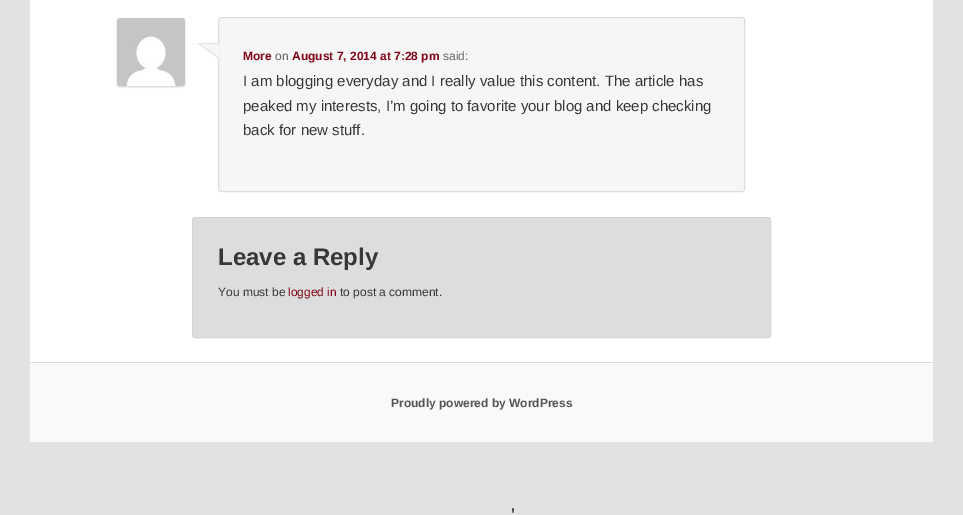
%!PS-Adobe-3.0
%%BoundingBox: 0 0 963 515
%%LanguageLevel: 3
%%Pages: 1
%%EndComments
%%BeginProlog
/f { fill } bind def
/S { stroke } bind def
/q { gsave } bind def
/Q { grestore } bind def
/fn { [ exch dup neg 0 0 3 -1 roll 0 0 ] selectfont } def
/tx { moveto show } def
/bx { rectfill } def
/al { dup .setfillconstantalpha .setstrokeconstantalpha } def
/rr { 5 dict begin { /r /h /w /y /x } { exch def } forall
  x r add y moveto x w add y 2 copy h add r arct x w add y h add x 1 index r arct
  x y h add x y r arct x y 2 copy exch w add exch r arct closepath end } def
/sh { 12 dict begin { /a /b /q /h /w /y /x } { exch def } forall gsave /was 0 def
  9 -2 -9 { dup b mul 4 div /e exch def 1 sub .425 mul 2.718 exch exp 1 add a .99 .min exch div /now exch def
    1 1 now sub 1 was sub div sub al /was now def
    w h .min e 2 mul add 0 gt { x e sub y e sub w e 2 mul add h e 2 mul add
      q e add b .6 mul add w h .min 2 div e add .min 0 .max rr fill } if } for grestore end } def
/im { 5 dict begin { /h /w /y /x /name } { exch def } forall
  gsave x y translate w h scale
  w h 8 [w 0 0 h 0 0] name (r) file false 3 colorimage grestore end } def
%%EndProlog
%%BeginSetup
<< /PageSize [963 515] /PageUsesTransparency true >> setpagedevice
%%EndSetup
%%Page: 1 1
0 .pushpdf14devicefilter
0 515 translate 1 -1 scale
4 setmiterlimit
0.886 setgray
0 0 963 515 bx
1 setgray
30 0 903 362 bx
0.965 setgray
218.5 17.5 526 174 2.5 rr q f Q
0.867 setgray
S
(image0.raw) 198 43 21 15 im
0.8 setgray
117 19 68 68 3 1 1 sh
(image1.raw) 117 18 68 68 im
/LiberationSans-Bold 12 fn
0.502 0.02 0.09 setrgbcolor
(More) 243 60 tx
/LiberationSans-Regular 12 fn
0.4 setgray
(on) 275 60 tx
/LiberationSans-Bold 12 fn
0.502 0.02 0.09 setrgbcolor
(August 7, 2014 at 7:28 pm) 292 60 tx
/LiberationSans-Regular 12 fn
0.4 setgray
(said:) 443 60 tx
/LiberationSans-Regular 15 fn
0.216 setgray
(I am blogging everyday and I really value this content. The article has) 243 86 tx
(peaked my interests, I’m going to favorite your blog and keep checking) 243 111 tx
(back for new stuff.) 243 135 tx
0.867 setgray
192.5 217.5 578 120 2.5 rr q f Q
0.827 setgray
S
/LiberationSans-Bold 24 fn
0.216 setgray
(Leave a Reply) 218 265 tx
/LiberationSans-Regular 12 fn
(You must be) 218 296 tx
0.502 0.02 0.09 setrgbcolor
(logged in) 288 296 tx
0.216 setgray
(to post a comment.) 340 296 tx
0.976 setgray
30 363 903 79 bx
0.867 setgray
30 362 903 1 bx
/LiberationSans-Bold 12 fn
0.333 setgray
(Proudly powered by WordPress) 391 407 tx
/OpenSans-Regular 18 fn
0 setgray
(') 511 521 tx
.poppdf14devicefilter showpage
%%EOF
